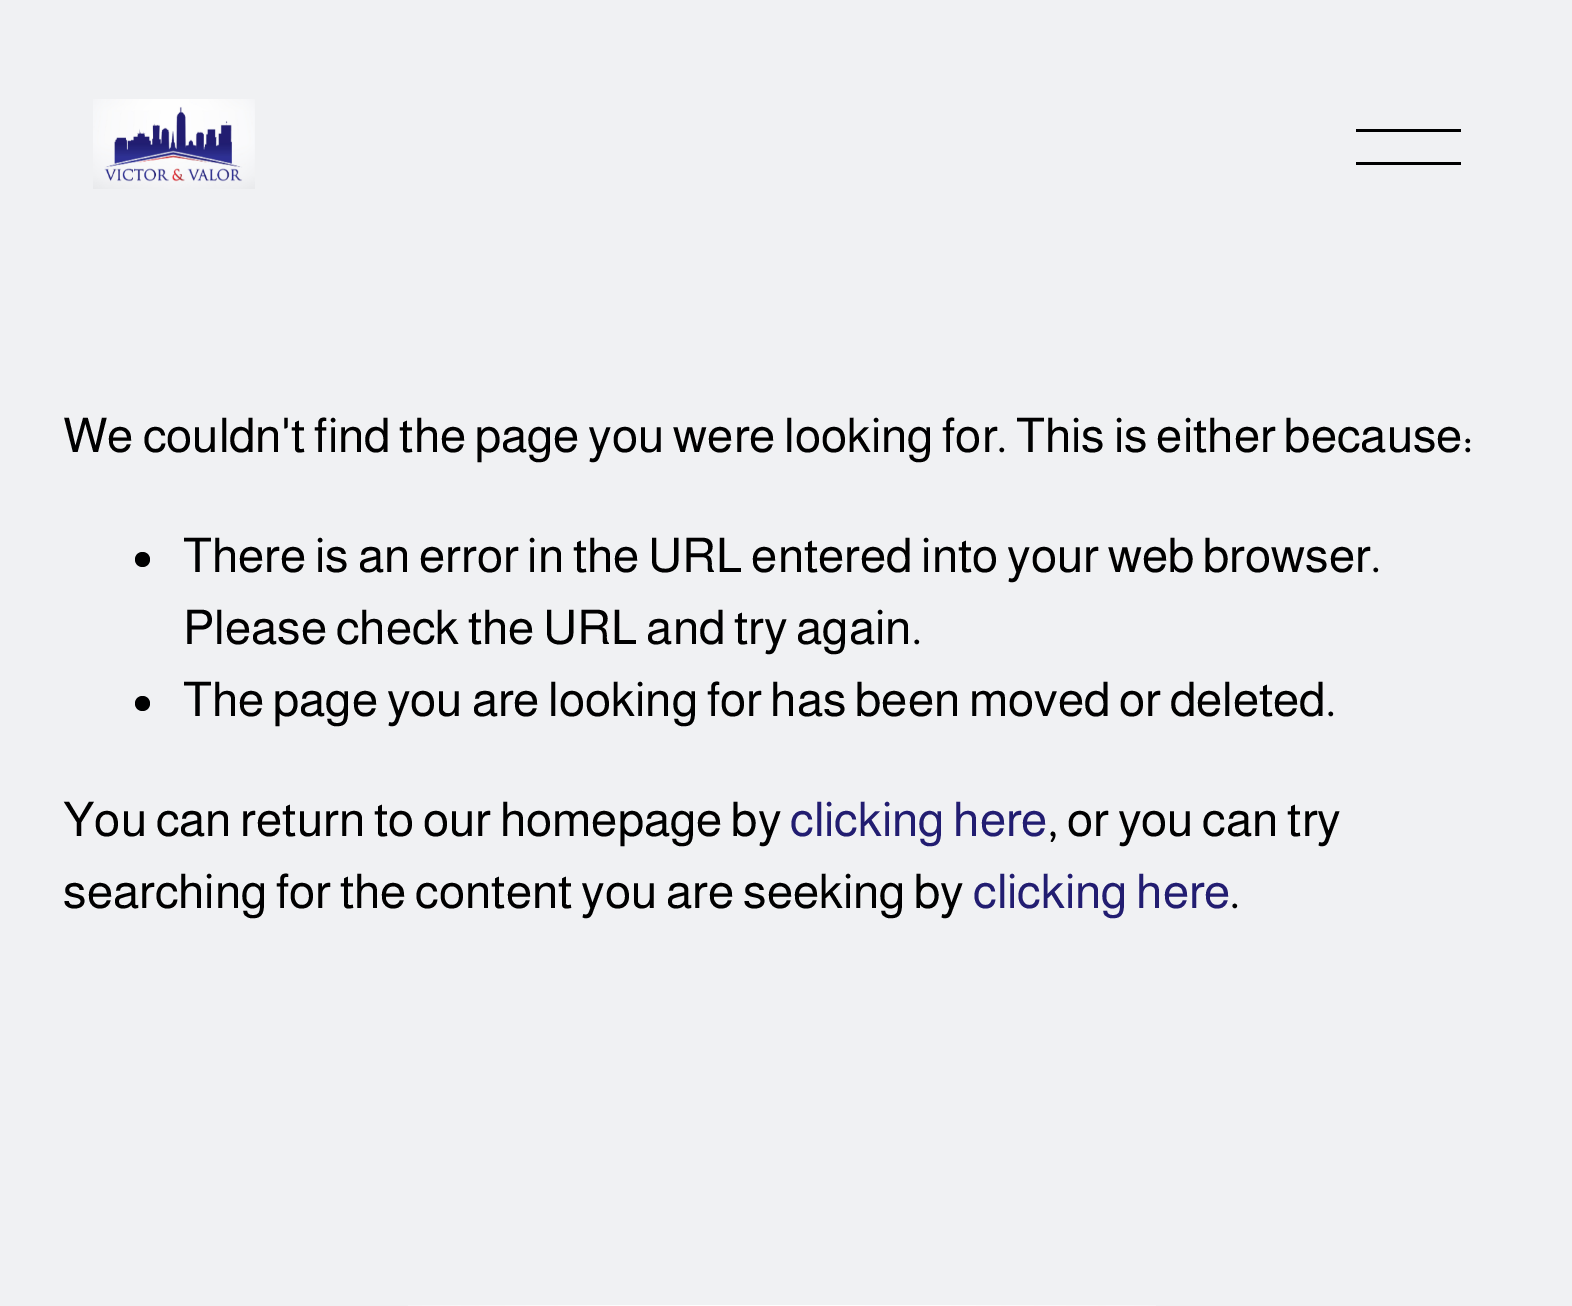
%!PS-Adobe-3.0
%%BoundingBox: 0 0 1572 1306
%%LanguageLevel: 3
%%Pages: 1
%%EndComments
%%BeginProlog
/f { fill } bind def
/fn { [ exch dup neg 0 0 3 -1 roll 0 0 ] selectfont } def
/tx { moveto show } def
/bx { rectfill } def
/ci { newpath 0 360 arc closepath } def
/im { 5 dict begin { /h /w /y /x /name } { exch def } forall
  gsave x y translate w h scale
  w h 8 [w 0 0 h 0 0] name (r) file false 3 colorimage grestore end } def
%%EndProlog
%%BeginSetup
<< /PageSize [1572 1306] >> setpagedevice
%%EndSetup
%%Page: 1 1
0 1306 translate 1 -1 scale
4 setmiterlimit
0.941 0.945 0.953 setrgbcolor
0 0 1572 1306 bx
(image0.raw) 93 99 162 90 im
0 setgray
1356 129 105 3 bx
1356 162 105 3 bx
/Almarai-Regular 48 fn
(We couldn't find the page you were looking for. This is either because:) 63 452 tx
142.5 559.5 7.5 ci f
(There is an error in the URL entered into your web browser.) 183 572 tx
(Please check the URL and try again.) 183 644 tx
142.5 703.5 7.5 ci f
(The page you are looking for has been moved or deleted.) 183 716 tx
(You can return to our homepage by) 63 836 tx
0.133 0.114 0.443 setrgbcolor
(clicking here) 790 836 tx
0 setgray
(, or you can try) 1048 836 tx
(searching for the content you are seeking by) 63 908 tx
0.133 0.114 0.443 setrgbcolor
(clicking here) 973 908 tx
0 setgray
(.) 1230 908 tx
(image1.raw) 408 1305 748 1 im
showpage
%%EOF
